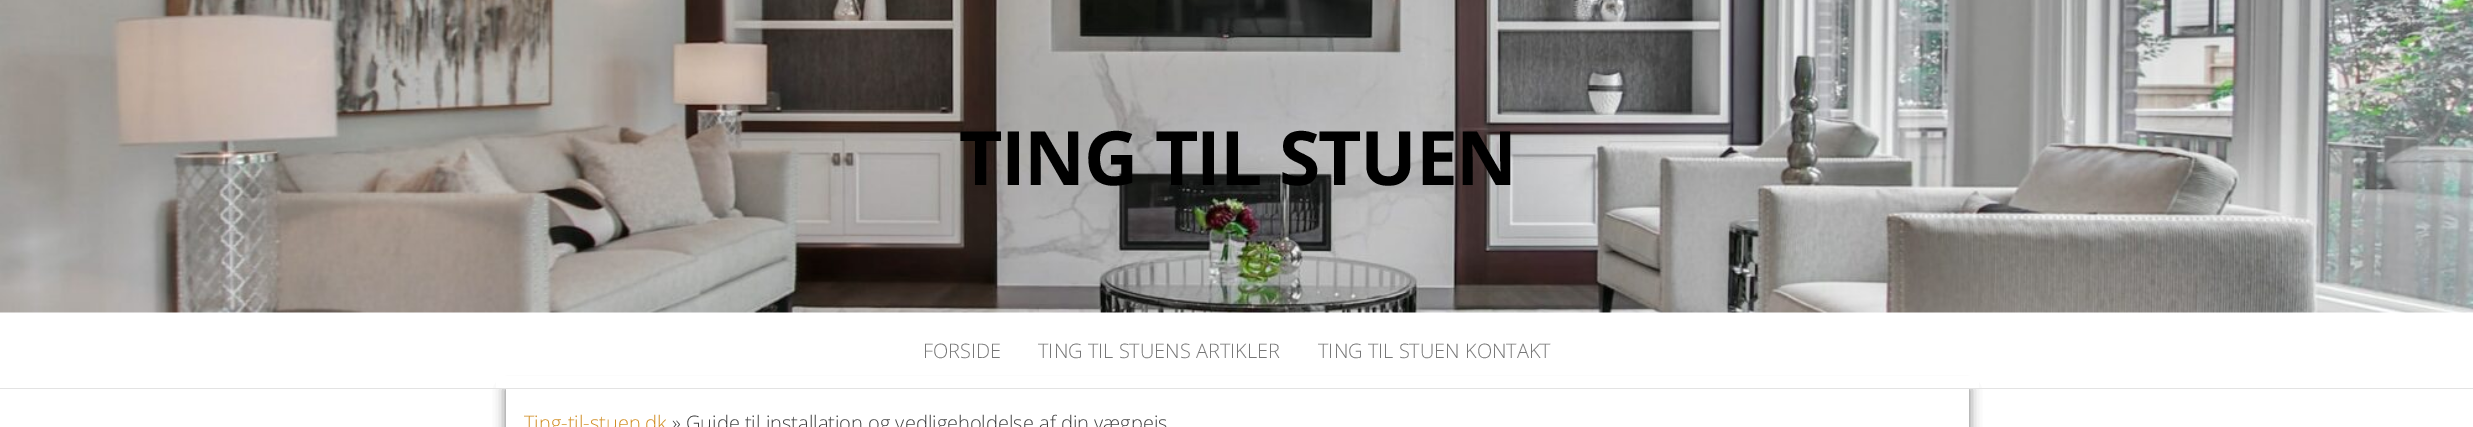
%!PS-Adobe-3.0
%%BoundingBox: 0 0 2473 427
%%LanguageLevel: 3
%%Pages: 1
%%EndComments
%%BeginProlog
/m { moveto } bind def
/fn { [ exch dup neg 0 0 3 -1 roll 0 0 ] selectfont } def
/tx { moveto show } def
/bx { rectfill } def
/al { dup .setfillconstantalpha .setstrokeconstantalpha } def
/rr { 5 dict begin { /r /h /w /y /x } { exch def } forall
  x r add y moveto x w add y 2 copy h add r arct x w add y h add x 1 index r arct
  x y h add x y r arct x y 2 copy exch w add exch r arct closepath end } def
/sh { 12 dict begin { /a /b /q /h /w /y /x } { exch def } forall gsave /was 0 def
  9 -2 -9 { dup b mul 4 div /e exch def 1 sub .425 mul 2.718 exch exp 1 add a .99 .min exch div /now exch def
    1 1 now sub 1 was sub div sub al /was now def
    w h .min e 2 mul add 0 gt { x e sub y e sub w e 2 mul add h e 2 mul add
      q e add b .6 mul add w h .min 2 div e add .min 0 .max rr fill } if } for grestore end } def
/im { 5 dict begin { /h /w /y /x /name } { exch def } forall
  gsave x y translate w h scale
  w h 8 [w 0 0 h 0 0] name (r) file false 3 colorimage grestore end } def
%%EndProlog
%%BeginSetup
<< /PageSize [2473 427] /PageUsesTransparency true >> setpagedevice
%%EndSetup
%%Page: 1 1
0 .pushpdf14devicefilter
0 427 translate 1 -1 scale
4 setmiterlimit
1 setgray
0 0 2473 427 bx
(image0.raw) 0 0 2473 313 im
/OpenSans-Bold 75 fn
0 setgray
959 185 m -1.5 0 (TING TIL STUEN) ashow
506 389 1463 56 0 6 0.55 sh
1 setgray
496 376 1483 12 bx
0.89 setgray
0 388 2473 1 bx
/OpenSans-Light 20 fn
0.467 setgray
(FORSIDE) 923 358 tx
(TING TIL STUENS ARTIKLER) 1038 358 tx
(TING TIL STUEN KONTAKT) 1318 358 tx
1 setgray
506 389 1463 38 bx
0.816 0.549 0.133 setrgbcolor
(Ting-til-stuen.dk) 524 430 tx
0.251 setgray
(» Guide til installation og vedligeholdelse af din vægpejs) 672 430 tx
.poppdf14devicefilter showpage
%%EOF
